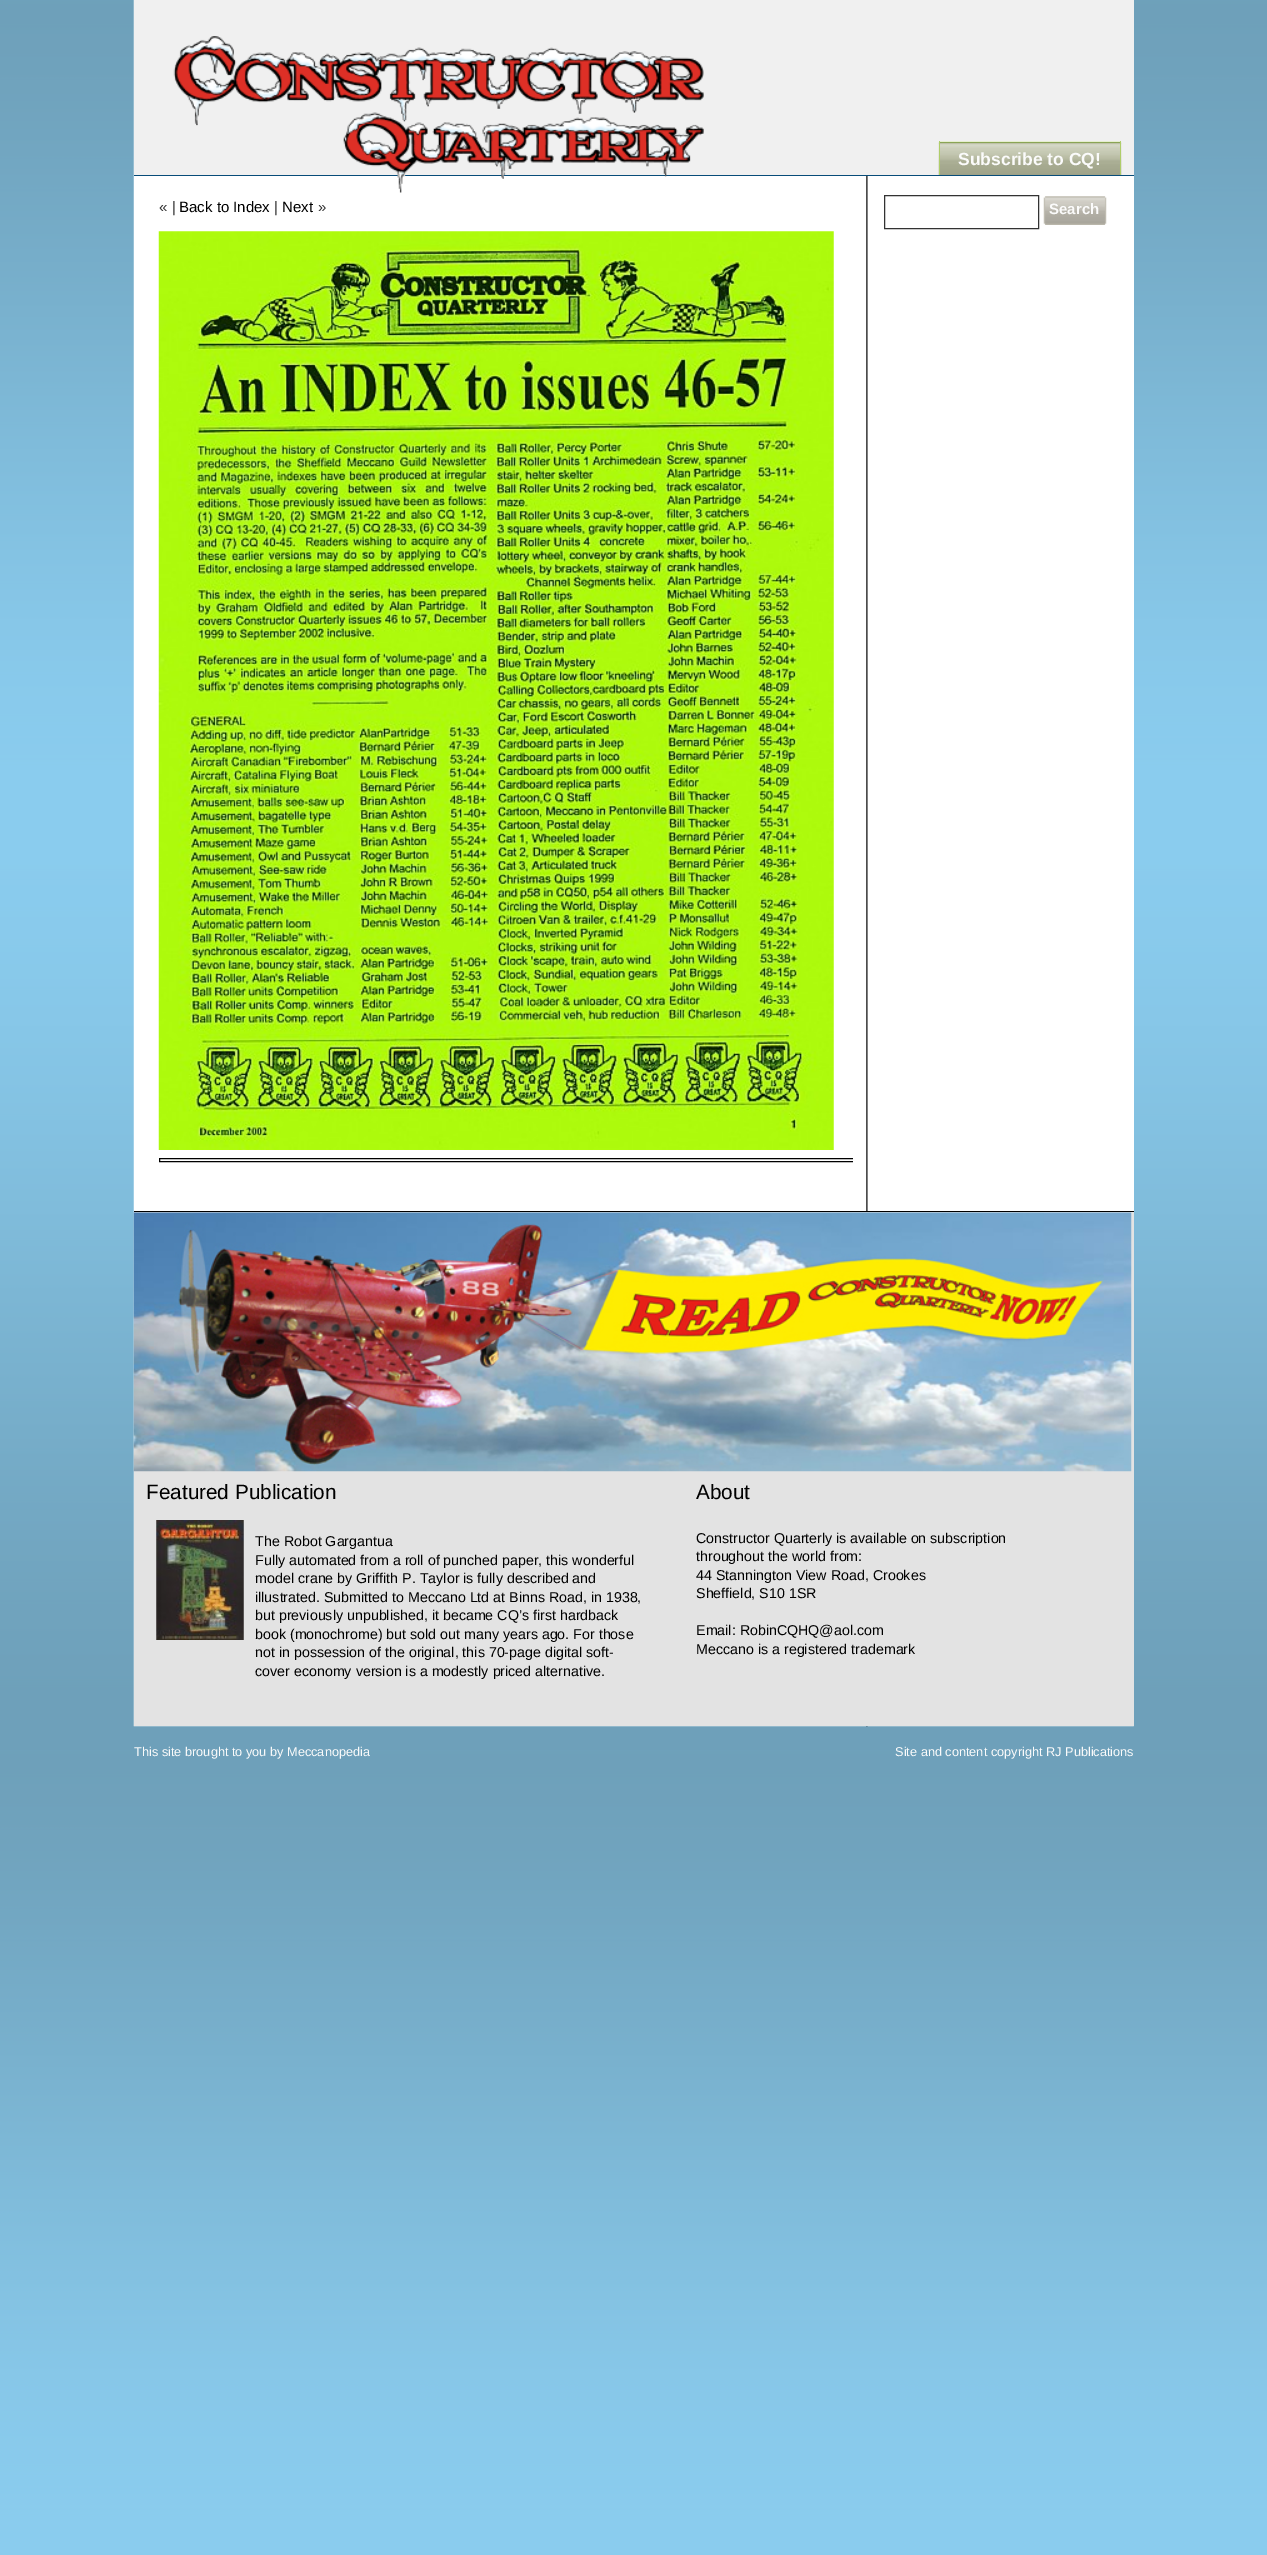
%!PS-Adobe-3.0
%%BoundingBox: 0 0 1267 2555
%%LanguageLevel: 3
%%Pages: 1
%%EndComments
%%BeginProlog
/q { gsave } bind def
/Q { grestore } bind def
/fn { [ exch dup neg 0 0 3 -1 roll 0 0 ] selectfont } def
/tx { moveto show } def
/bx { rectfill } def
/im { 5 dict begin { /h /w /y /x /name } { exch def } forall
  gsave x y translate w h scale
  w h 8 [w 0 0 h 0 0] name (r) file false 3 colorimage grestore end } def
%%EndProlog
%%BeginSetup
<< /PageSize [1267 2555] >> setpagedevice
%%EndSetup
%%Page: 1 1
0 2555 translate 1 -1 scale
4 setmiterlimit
1 setgray
0 0 1267 2555 bx
(image0.raw) 0 0 1267 2555 im
(image1.raw) 133 0 1001 1727 im
0.941 setgray
134 0 1000 175 bx
0.031 0.298 0.475 setrgbcolor
134 175 1000 1 bx
(image2.raw) 173 36 531 157 im
0.361 0.553 0.047 setrgbcolor
940 142 180 1 bx
(image3.raw) 938 142 184 33 im
0.902 0.933 0.816 setrgbcolor
939 141 182 1 bx
0.686 0.804 0.412 setrgbcolor
1120 141 1 34 bx
939 141 1 34 bx
/LiberationSans-Bold 17.5 fn
0.984 setgray
(Subscribe to CQ!) 958 165 tx
/LiberationSans-Regular 15 fn
0.2 setgray
(« |) 159 212 tx
0 setgray
(Back to Index) 179 212 tx
0.2 setgray
(|) 274 212 tx
0 setgray
(Next) 282 212 tx
0.2 setgray
(») 318 212 tx
(image4.raw) 158 231 676 919 im
q
134 176 719 1035 rectclip
0 setgray
159.5 1158.5 695 3 rectstroke
Q
884.5 195.5 154 33 rectstroke
(image5.raw) 1043 196 64 29 im
/LiberationSans-Bold 15 fn
0.984 setgray
(Search) 1049 214 tx
0.89 setgray
134 1212 1000 514 bx
0 setgray
134 1211 1000 1 bx
(image6.raw) 133 1212 999 260 im
/LiberationSans-Regular 20.75 fn
(Featured Publication) 146 1499 tx
(image7.raw) 156 1520 88 120 im
/LiberationSans-Regular 14.25 fn
(The Robot Gargantua) 255 1546 tx
(Fully automated from a roll of punched paper, this wonderful) 255 1565 tx
(model crane by Griffith P. Taylor is fully described and) 255 1583 tx
(illustrated. Submitted to Meccano Ltd at Binns Road, in 1938,) 255 1602 tx
(but previously unpublished, it became CQ’s first hardback) 255 1620 tx
(book \(monochrome\) but sold out many years ago. For those) 255 1639 tx
(not in possession of the original, this 70-page digital soft-) 255 1657 tx
(cover economy version is a modestly priced alternative.) 255 1676 tx
/LiberationSans-Regular 20.75 fn
(About) 696 1499 tx
/LiberationSans-Regular 14.25 fn
(Constructor Quarterly is available on subscription) 696 1543 tx
(throughout the world from:) 696 1561 tx
(44 Stannington View Road, Crookes) 696 1580 tx
(Sheffield, S10 1SR) 696 1598 tx
(Email: RobinCQHQ@aol.com) 696 1635 tx
(Meccano is a registered trademark) 696 1654 tx
/LiberationSans-Regular 12.75 fn
0.984 setgray
(This site brought to you by) 134 1756 tx
(Meccanopedia) 287 1756 tx
(Site and content copyright RJ Publications) 895 1756 tx
showpage
%%EOF
